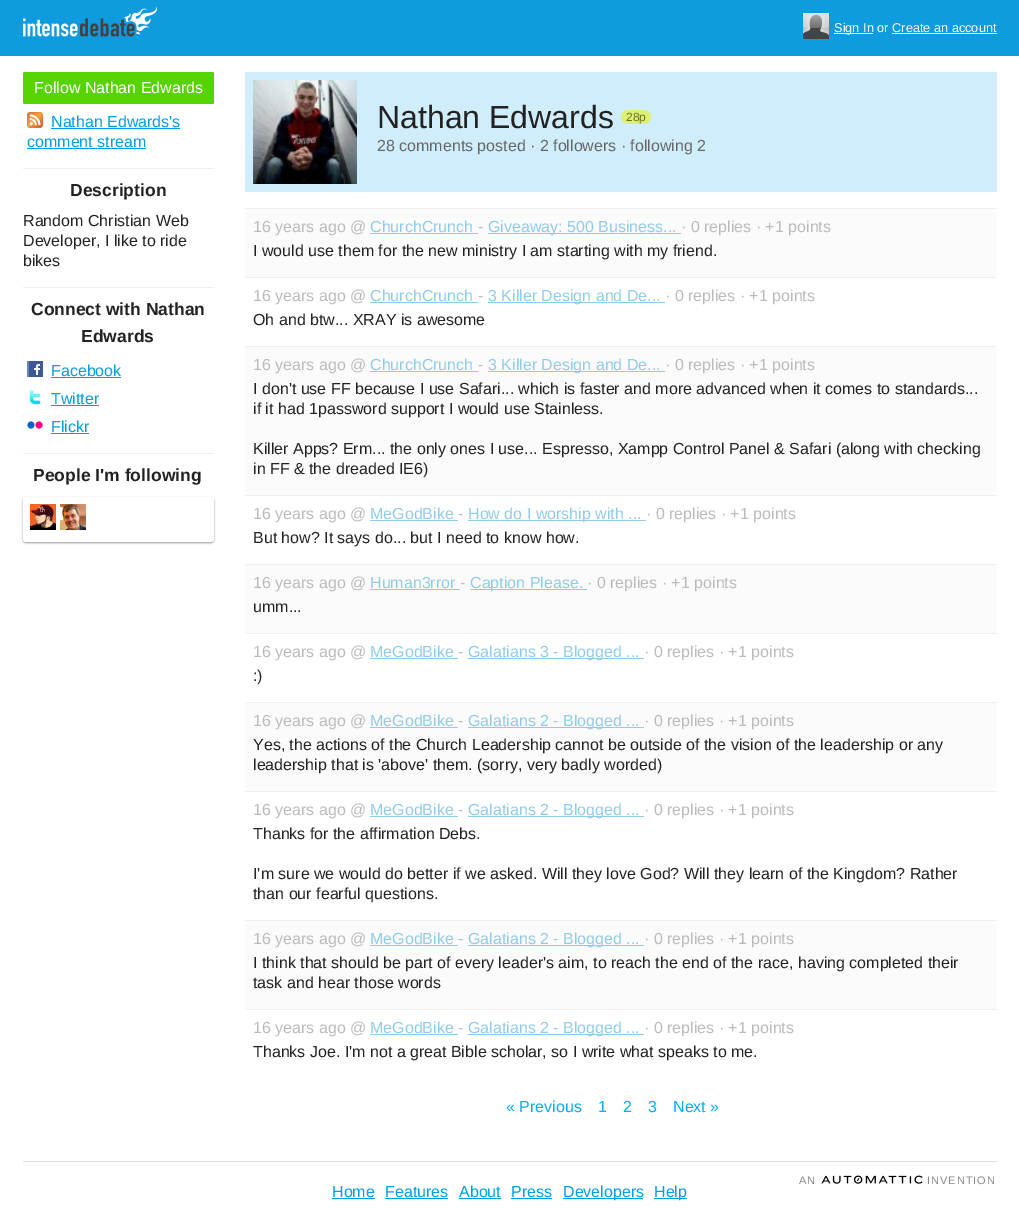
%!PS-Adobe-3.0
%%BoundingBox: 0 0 1019 1227
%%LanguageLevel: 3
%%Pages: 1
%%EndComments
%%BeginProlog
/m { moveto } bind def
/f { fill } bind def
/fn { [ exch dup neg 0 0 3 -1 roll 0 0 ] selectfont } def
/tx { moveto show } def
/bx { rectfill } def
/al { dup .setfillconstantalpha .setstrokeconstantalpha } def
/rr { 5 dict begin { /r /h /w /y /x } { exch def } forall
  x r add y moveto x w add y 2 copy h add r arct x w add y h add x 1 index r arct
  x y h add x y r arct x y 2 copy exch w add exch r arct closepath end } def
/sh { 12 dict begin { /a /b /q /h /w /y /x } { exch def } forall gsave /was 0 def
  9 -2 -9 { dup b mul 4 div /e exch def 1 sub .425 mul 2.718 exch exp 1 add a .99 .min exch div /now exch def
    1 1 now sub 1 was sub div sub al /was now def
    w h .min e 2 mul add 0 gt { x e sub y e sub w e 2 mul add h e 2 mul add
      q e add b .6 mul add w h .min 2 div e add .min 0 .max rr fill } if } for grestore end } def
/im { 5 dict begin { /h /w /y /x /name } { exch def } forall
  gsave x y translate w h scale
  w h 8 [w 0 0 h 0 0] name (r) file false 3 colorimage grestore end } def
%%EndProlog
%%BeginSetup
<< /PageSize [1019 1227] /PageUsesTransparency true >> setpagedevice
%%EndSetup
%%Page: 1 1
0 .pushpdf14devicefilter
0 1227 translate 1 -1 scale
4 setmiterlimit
1 setgray
0 0 1019 1227 bx
0.059 0.612 0.875 setrgbcolor
0 0 1019 56 bx
(image0.raw) 23 6 134 31 im
(image1.raw) 803 13 26 26 im
1 setgray
834 33 39 1 bx
/LiberationSans-Regular 12.75 fn
(Sign In or Create an account) 834 32 tx
892 33 105 1 bx
0.341 0.831 0 setrgbcolor
23 72 191 32 2 rr f
/LiberationSans-Regular 16 fn
1 setgray
(Follow Nathan Edwards) 34 93 tx
(image2.raw) 27 112 16 16 im
0 0.62 0.894 setrgbcolor
(Nathan Edwards's) 51 127 tx
51 128 129 1 bx
(comment stream) 27 147 tx
27 148 119 1 bx
0.937 setgray
23 168 191 1 bx
/LiberationSans-Bold 17.5 fn
0.133 setgray
(Description) 70 196 tx
/LiberationSans-Regular 16 fn
(Random Christian Web) 23 226 tx
(Developer, I like to ride) 23 246 tx
(bikes) 23 266 tx
0.937 setgray
23 287 191 1 bx
/LiberationSans-Bold 17.5 fn
0.133 setgray
(Connect with Nathan) 31 315 tx
(Edwards) 81 342 tx
(image3.raw) 27 361 16 16 im
/LiberationSans-Regular 16 fn
0 0.62 0.894 setrgbcolor
(Facebook) 51 376 tx
51 377 70 1 bx
(image4.raw) 29 389 12 16 im
(Twitter) 51 404 tx
51 405 48 1 bx
(image5.raw) 27 421 16 8 im
(Flickr) 51 432 tx
51 433 38 1 bx
0.937 setgray
23 453 191 1 bx
/LiberationSans-Bold 17.5 fn
0.133 setgray
(People I'm following) 33 481 tx
0.6 setgray
23 498 191 45 3 1 1 sh
1 setgray
23 497 191 45 3 rr f
(image6.raw) 30 504 26 26 im
(image7.raw) 60 504 26 26 im
0.812 0.929 0.984 setrgbcolor
245 72 752 120 bx
(image8.raw) 253 80 104 104 im
/LiberationSans-Regular 32 fn
0.133 setgray
(Nathan Edwards) 377 128 tx
(image9.raw) 621 110 5 14 im
(image10.raw) 626 110 25 14 im
/LiberationSans-Regular 12 fn
0.4 0.467 0.149 setrgbcolor
(28p) 626 121 tx
/LiberationSans-Regular 16 fn
0.4 setgray
(28 comments posted · 2 followers · following 2) 377 151 tx
0.984 setgray
245 209 752 68 bx
0.937 setgray
245 208 752 1 bx
0.733 setgray
(16 years ago @) 253 232 tx
0.565 0.796 0.91 setrgbcolor
(ChurchCrunch) 370 232 tx
370 233 108 1 bx
0.733 setgray
(-) 478 232 tx
0.565 0.796 0.91 setrgbcolor
488 233 193 1 bx
(Giveaway: 500 Business...) 488 232 tx
0.733 setgray
(· 0 replies · +1 points) 681 232 tx
0.133 setgray
(I would use them for the new ministry I am starting with my friend.) 253 256 tx
0.937 setgray
245 277 752 1 bx
0.733 setgray
(16 years ago @) 253 301 tx
0.565 0.796 0.91 setrgbcolor
(ChurchCrunch) 370 301 tx
370 302 108 1 bx
0.733 setgray
(-) 478 301 tx
0.565 0.796 0.91 setrgbcolor
488 302 177 1 bx
(3 Killer Design and De...) 488 301 tx
0.733 setgray
(· 0 replies · +1 points) 665 301 tx
0.133 setgray
(Oh and btw... XRAY is awesome) 253 325 tx
0.984 setgray
245 347 752 148 bx
0.937 setgray
245 346 752 1 bx
0.733 setgray
(16 years ago @) 253 370 tx
0.565 0.796 0.91 setrgbcolor
(ChurchCrunch) 370 370 tx
370 371 108 1 bx
0.733 setgray
(-) 478 370 tx
0.565 0.796 0.91 setrgbcolor
488 371 177 1 bx
(3 Killer Design and De...) 488 370 tx
0.733 setgray
(· 0 replies · +1 points) 665 370 tx
0.133 setgray
(I don't use FF because I use Safari... which is faster and more advanced when it comes to standards...) 253 394 tx
(if it had 1password support I would use Stainless.) 253 414 tx
(Killer Apps? Erm... the only ones I use... Espresso, Xampp Control Panel & Safari \(along with checking) 253 454 tx
(in FF & the dreaded IE6\)) 253 474 tx
0.937 setgray
245 495 752 1 bx
0.733 setgray
(16 years ago @) 253 519 tx
0.565 0.796 0.91 setrgbcolor
(MeGodBike) 370 519 tx
370 520 88 1 bx
0.733 setgray
(-) 458 519 tx
0.565 0.796 0.91 setrgbcolor
468 520 178 1 bx
(How do I worship with ...) 468 519 tx
0.733 setgray
(· 0 replies · +1 points) 646 519 tx
0.133 setgray
(But how? It says do... but I need to know how.) 253 543 tx
0.984 setgray
245 565 752 68 bx
0.937 setgray
245 564 752 1 bx
0.733 setgray
(16 years ago @) 253 588 tx
0.565 0.796 0.91 setrgbcolor
(Human3rror) 370 588 tx
370 589 90 1 bx
0.733 setgray
(-) 460 588 tx
0.565 0.796 0.91 setrgbcolor
470 589 117 1 bx
(Caption Please.) 470 588 tx
0.733 setgray
(· 0 replies · +1 points) 587 588 tx
0.133 setgray
(umm...) 253 612 tx
0.937 setgray
245 633 752 1 bx
0.733 setgray
(16 years ago @) 253 657 tx
0.565 0.796 0.91 setrgbcolor
(MeGodBike) 370 657 tx
370 658 88 1 bx
0.733 setgray
(-) 458 657 tx
0.565 0.796 0.91 setrgbcolor
468 658 176 1 bx
(Galatians 3 - Blogged ...) 468 657 tx
0.733 setgray
(· 0 replies · +1 points) 644 657 tx
0.133 setgray
(:\)) 253 681 tx
0.984 setgray
245 703 752 88 bx
0.937 setgray
245 702 752 1 bx
0.733 setgray
(16 years ago @) 253 726 tx
0.565 0.796 0.91 setrgbcolor
(MeGodBike) 370 726 tx
370 727 88 1 bx
0.733 setgray
(-) 458 726 tx
0.565 0.796 0.91 setrgbcolor
468 727 176 1 bx
(Galatians 2 - Blogged ...) 468 726 tx
0.733 setgray
(· 0 replies · +1 points) 644 726 tx
0.133 setgray
(Yes, the actions of the Church Leadership cannot be outside of the vision of the leadership or any) 253 750 tx
(leadership that is 'above' them. \(sorry, very badly worded\)) 253 770 tx
0.937 setgray
245 791 752 1 bx
0.733 setgray
(16 years ago @) 253 815 tx
0.565 0.796 0.91 setrgbcolor
(MeGodBike) 370 815 tx
370 816 88 1 bx
0.733 setgray
(-) 458 815 tx
0.565 0.796 0.91 setrgbcolor
468 816 176 1 bx
(Galatians 2 - Blogged ...) 468 815 tx
0.733 setgray
(· 0 replies · +1 points) 644 815 tx
0.133 setgray
(Thanks for the affirmation Debs.) 253 839 tx
(I'm sure we would do better if we asked. Will they love God? Will they learn of the Kingdom? Rather) 253 879 tx
(than our fearful questions.) 253 899 tx
0.984 setgray
245 921 752 88 bx
0.937 setgray
245 920 752 1 bx
0.733 setgray
(16 years ago @) 253 944 tx
0.565 0.796 0.91 setrgbcolor
(MeGodBike) 370 944 tx
370 945 88 1 bx
0.733 setgray
(-) 458 944 tx
0.565 0.796 0.91 setrgbcolor
468 945 176 1 bx
(Galatians 2 - Blogged ...) 468 944 tx
0.733 setgray
(· 0 replies · +1 points) 644 944 tx
0.133 setgray
(I think that should be part of every leader's aim, to reach the end of the race, having completed their) 253 968 tx
(task and hear those words) 253 988 tx
0.937 setgray
245 1009 752 1 bx
0.733 setgray
(16 years ago @) 253 1033 tx
0.565 0.796 0.91 setrgbcolor
(MeGodBike) 370 1033 tx
370 1034 88 1 bx
0.733 setgray
(-) 458 1033 tx
0.565 0.796 0.91 setrgbcolor
468 1034 176 1 bx
(Galatians 2 - Blogged ...) 468 1033 tx
0.733 setgray
(· 0 replies · +1 points) 644 1033 tx
0.133 setgray
(Thanks Joe. I'm not a great Bible scholar, so I write what speaks to me.) 253 1057 tx
0 0.675 1 setrgbcolor
(« Previous) 506 1112 tx
(1) 598 1112 tx
(2) 623 1112 tx
(3) 648 1112 tx
(Next ») 673 1112 tx
0.867 setgray
23 1161 974 1 bx
/LiberationSans-Regular 11 fn
0.533 setgray
799 1184 m 1 0 (AN) ashow
(image11.raw) 821 1175 102 9 im
927 1184 m 1 0 (INVENTION) ashow
/LiberationSans-Regular 16 fn
0 0.62 0.894 setrgbcolor
(Home) 332 1197 tx
332 1198 43 1 bx
(Features) 385 1197 tx
385 1198 63 1 bx
(About) 459 1197 tx
459 1198 42 1 bx
(Press) 511 1197 tx
511 1198 41 1 bx
563 1198 80 1 bx
(Developers) 563 1197 tx
654 1198 33 1 bx
(Help) 654 1197 tx
.poppdf14devicefilter showpage
%%EOF
